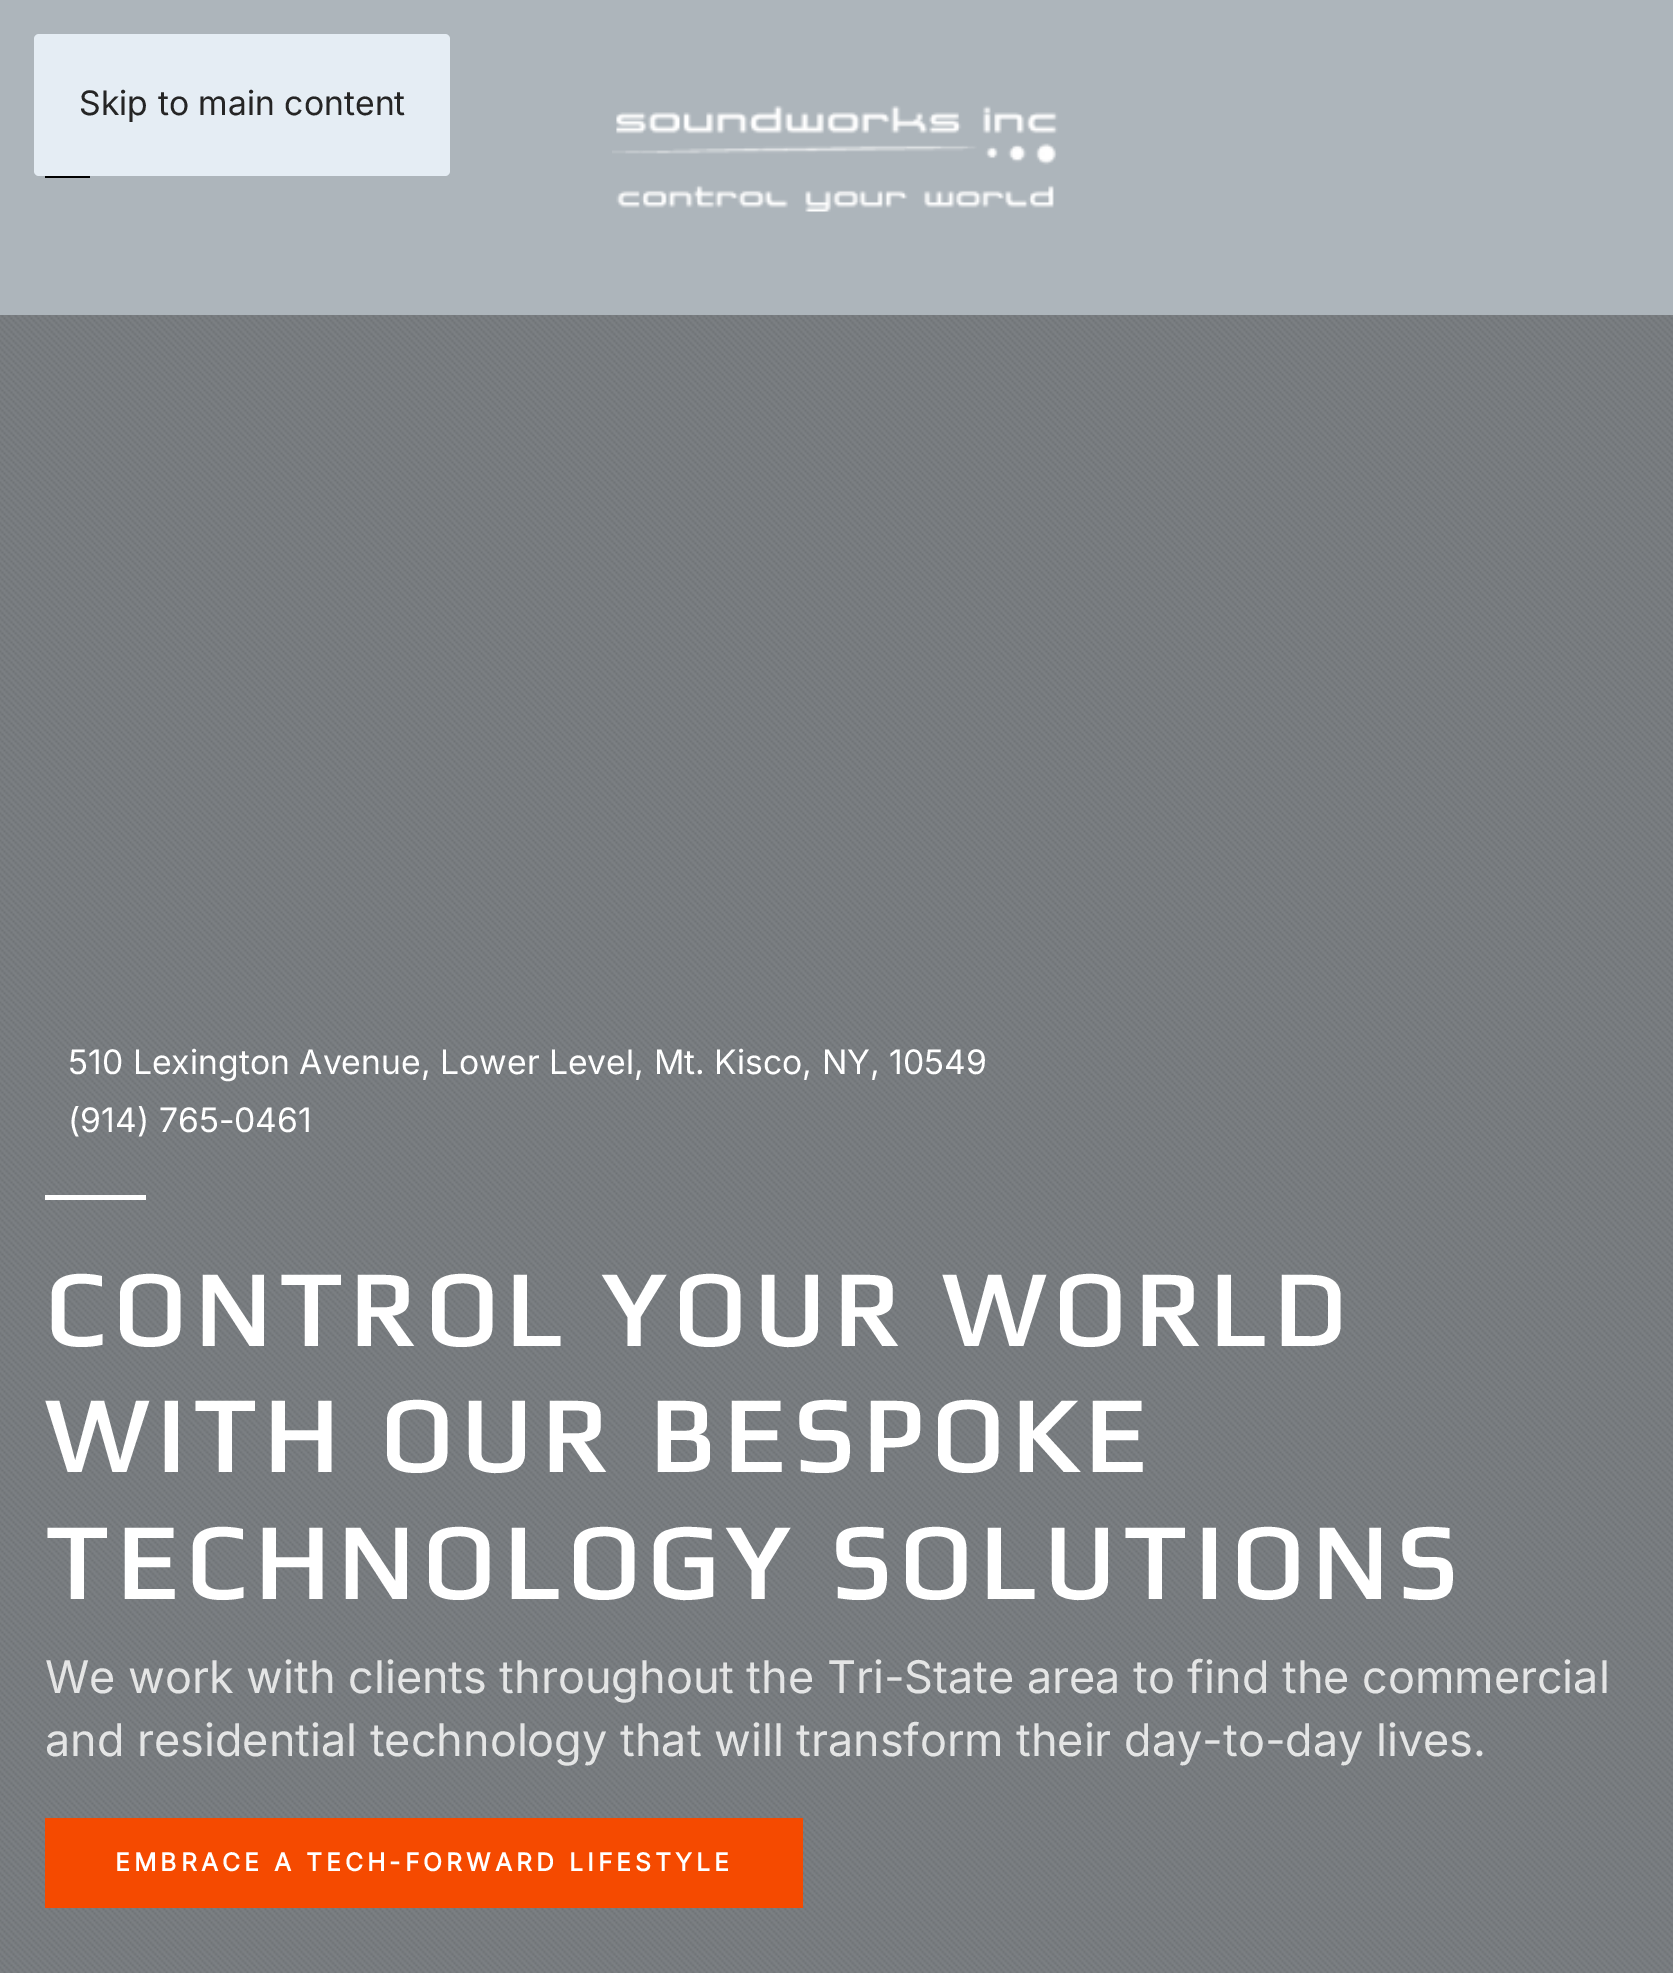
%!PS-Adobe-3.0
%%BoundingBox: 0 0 1673 1973
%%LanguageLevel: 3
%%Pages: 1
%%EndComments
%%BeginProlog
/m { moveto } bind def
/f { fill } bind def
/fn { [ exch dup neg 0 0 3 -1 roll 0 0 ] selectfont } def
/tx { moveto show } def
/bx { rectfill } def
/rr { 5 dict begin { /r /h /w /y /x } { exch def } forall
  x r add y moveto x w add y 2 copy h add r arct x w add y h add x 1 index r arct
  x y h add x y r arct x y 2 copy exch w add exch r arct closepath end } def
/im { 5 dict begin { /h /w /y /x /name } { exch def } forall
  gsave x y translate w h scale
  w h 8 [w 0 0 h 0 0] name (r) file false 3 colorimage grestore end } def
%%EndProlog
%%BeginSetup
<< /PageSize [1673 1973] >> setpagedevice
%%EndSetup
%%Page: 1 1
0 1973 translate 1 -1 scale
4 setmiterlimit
0.678 0.71 0.733 setrgbcolor
0 0 1673 1973 bx
0.898 0.929 0.957 setrgbcolor
34 34 416 142 5 rr f
/Inter-Regular 33.75 fn
0.145 setgray
(Skip to main content) 79 115 tx
0 setgray
45 176 45 2 bx
(image0.raw) 612 105 446 107 im
0.482 0.498 0.514 setrgbcolor
0 315 1673 1658 bx
(image1.raw) 0 315 1673 1658 im
1 setgray
(510 Lexington Avenue, Lower Level, Mt. Kisco, NY, 10549) 68 1074 tx
(\(914\) 765-0461) 68 1132 tx
45 1195 101 5 bx
/Play-Bold 105.25 fn
45 1346 m 9 0 (CONTROL YOUR WORLD) ashow
45 1472 m 9 0 (WITH OUR BESPOKE) ashow
45 1599 m 9 0 (TECHNOLOGY SOLUTIONS) ashow
/Inter-Regular 45 fn
0.894 0.898 0.898 setrgbcolor
(We work with clients throughout the Tri-State area to find the commercial) 45 1693 tx
(and residential technology that will transform their day-to-day lives.) 45 1756 tx
0.961 0.29 0 setrgbcolor
45 1818 758 90 bx
/Inter-Bold 24.75 fn
1 setgray
115 1871 m 4.05 0 (EMBRACE A TECH-FORWARD LIFESTYLE) ashow
showpage
%%EOF
